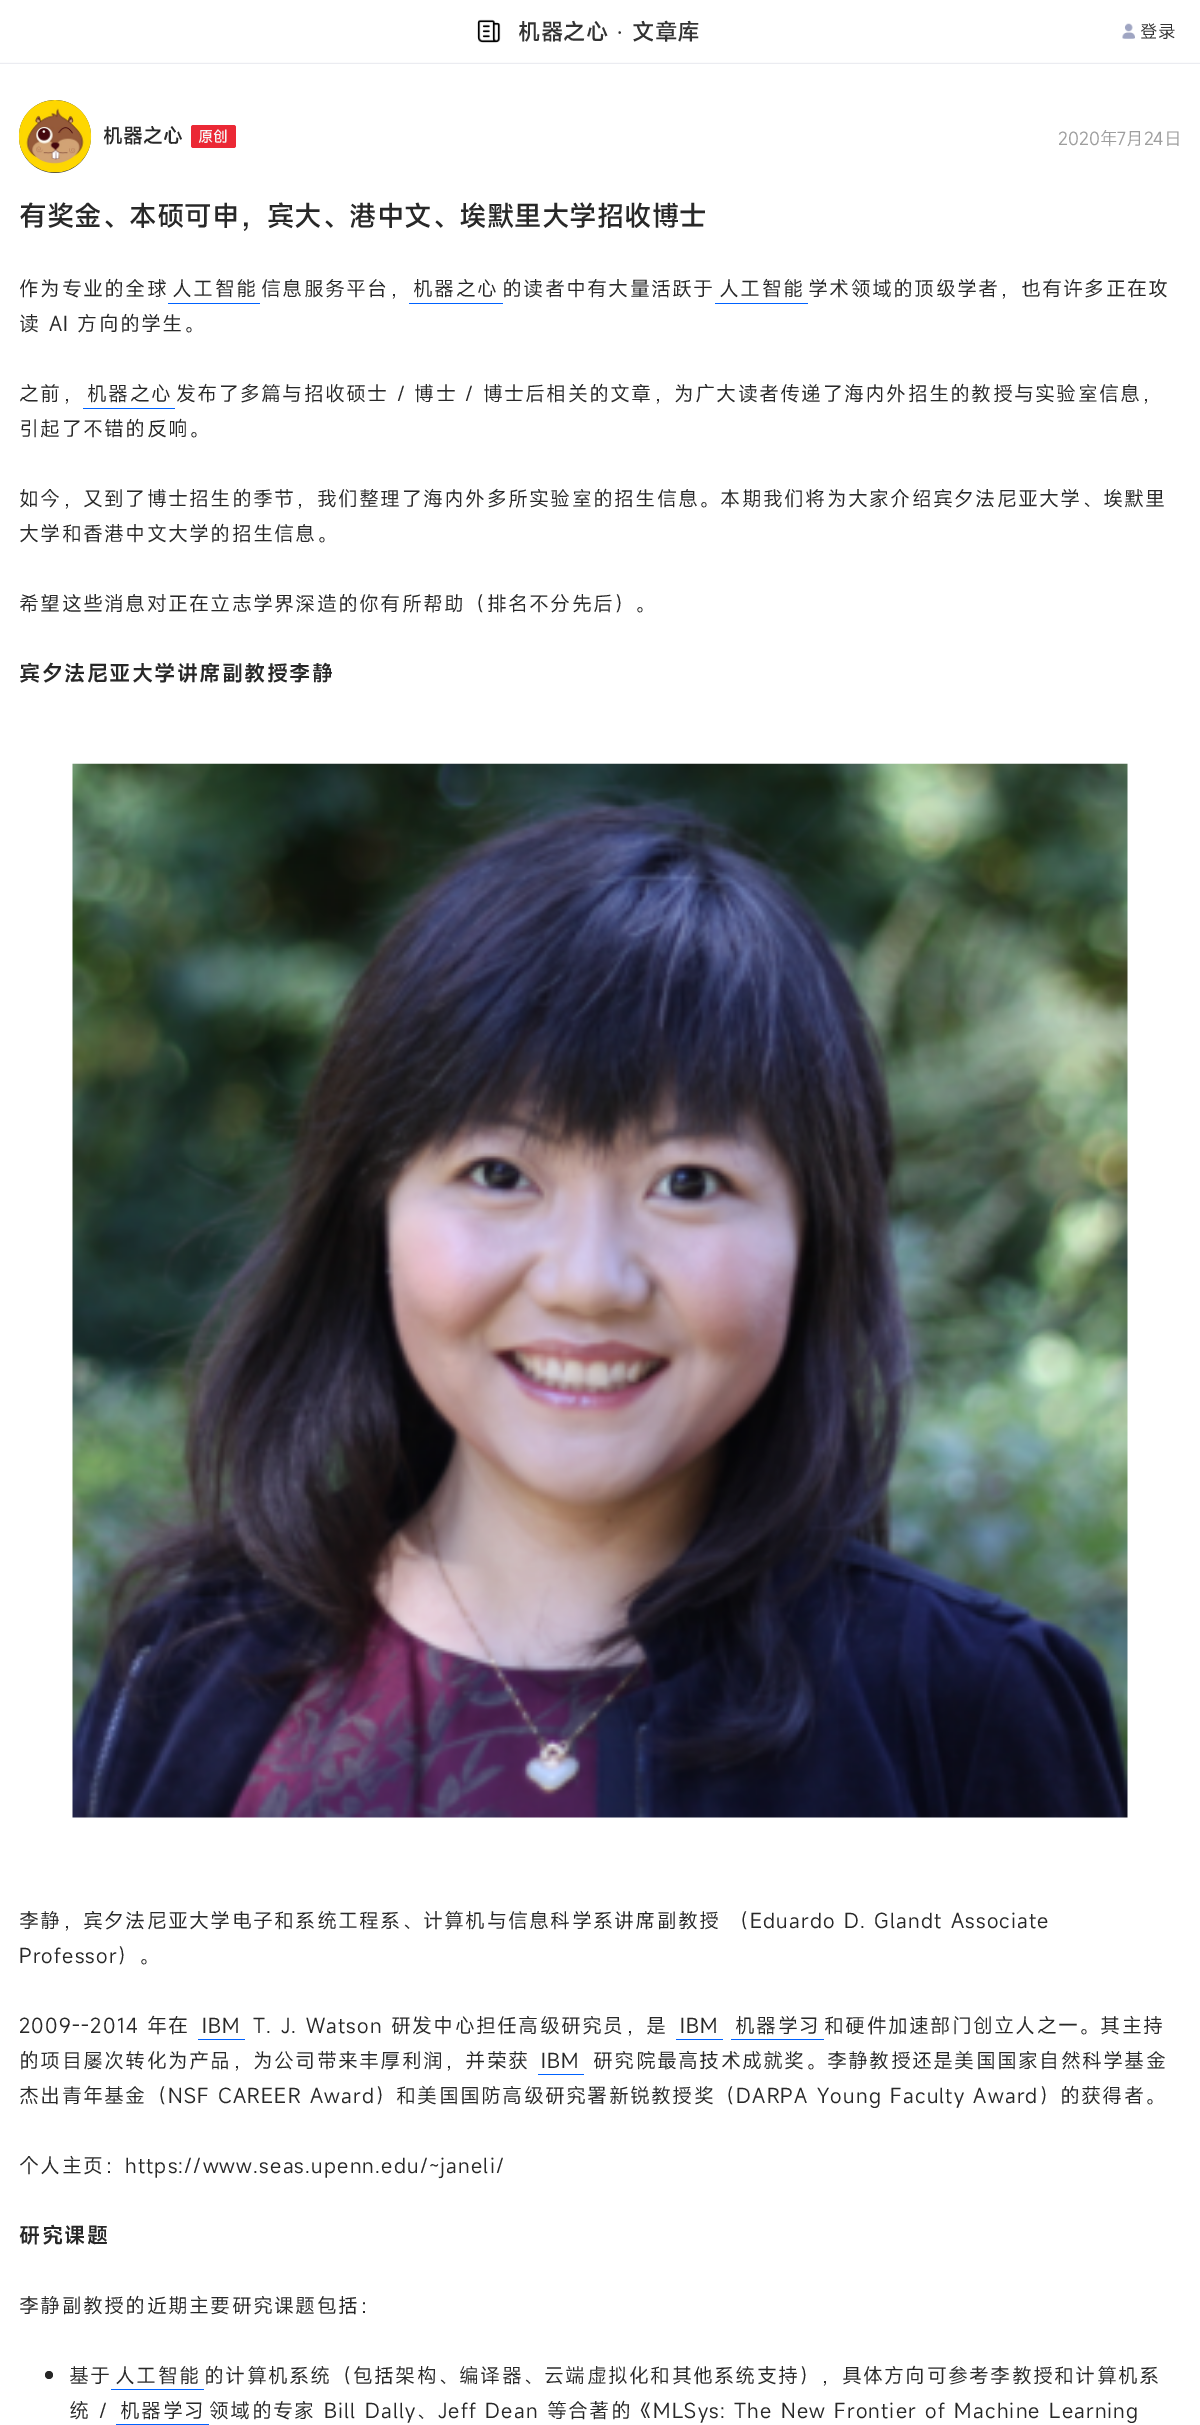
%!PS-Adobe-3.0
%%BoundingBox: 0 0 1200 2425
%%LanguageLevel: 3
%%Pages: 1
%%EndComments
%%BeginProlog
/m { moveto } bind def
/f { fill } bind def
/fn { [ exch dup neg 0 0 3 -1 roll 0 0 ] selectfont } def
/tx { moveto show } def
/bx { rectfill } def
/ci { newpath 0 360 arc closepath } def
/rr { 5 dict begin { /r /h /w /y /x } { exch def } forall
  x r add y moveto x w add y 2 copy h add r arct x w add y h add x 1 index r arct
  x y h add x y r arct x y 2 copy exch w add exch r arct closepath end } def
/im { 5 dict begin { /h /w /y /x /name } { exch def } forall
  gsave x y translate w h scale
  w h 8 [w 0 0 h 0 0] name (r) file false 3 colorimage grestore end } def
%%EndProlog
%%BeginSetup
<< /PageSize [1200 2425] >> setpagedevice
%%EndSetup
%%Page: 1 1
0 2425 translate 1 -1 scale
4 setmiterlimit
1 setgray
0 0 1200 2425 bx
0.922 0.925 0.945 setrgbcolor
0 63 1200 1 bx
0.984 0.984 0.988 setrgbcolor
0 62 1200 1 bx
(image0.raw) 477 19 24 24 im
/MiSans-Medium 22.5 fn
0.2 setgray
(机器之心) 518 40 tx
/LiberationSerif-Regular 22.5 fn
(·) 616 40 tx
/MiSans-Medium 22.5 fn
(文章库) 632 40 tx
(image1.raw) 1122 23 13 16 im
/MiSans-Regular 17.5 fn
(登录) 1140 38 tx
19 100 72 73 36 rr f
(image2.raw) 18 100 74 73 im
/MiSans-Medium 20 fn
0.157 setgray
(机器之心) 103 143 tx
0.922 0.157 0.208 setrgbcolor
191 125 45 23 2.5 rr f
/MiSans-Medium 15 fn
0.965 setgray
(原创) 198 142 tx
/MiSans-Regular 17.5 fn
0.616 setgray
(2020年7月24日) 1058 145 tx
/MiSans-Medium 27.5 fn
0.157 setgray
(有奖金、本硕可申，宾大、港中文、埃默里大学招收博士) 19 226 tx
/MiSans-Regular 20 fn
19 296 m 1.25 0 (作为专业的全球) ashow
172 296 m 1.25 0 (人工智能) ashow
0 0.384 1 setrgbcolor
168 303 92 1 bx
0.157 setgray
261 296 m 1.25 0 (信息服务平台，) ashow
413 296 m 1.25 0 (机器之心) ashow
0 0.384 1 setrgbcolor
409 303 94 1 bx
0.157 setgray
502 296 m 1.25 0 (的读者中有大量活跃于) ashow
719 296 m 1.25 0 (人工智能) ashow
0 0.384 1 setrgbcolor
715 303 93 1 bx
0.157 setgray
808 296 m 1.25 0 (学术领域的顶级学者，也有许多正在攻) ashow
19 331 m 1.25 0 (读 AI 方向的学生。) ashow
19 401 m 1.25 0 (之前，) ashow
87 401 m 1.25 0 (机器之心) ashow
0 0.384 1 setrgbcolor
83 408 92 1 bx
0.157 setgray
176 401 m 1.25 0 (发布了多篇与招收硕士 / 博士 / 博士后相关的文章，为广大读者传递了海内外招生的教授与实验室信息，) ashow
19 436 m 1.25 0 (引起了不错的反响。) ashow
19 506 m 1.25 0 (如今，又到了博士招生的季节，我们整理了海内外多所实验室的招生信息。本期我们将为大家介绍宾夕法尼亚大学、埃默里) ashow
19 541 m 1.25 0 (大学和香港中文大学的招生信息。) ashow
19 611 m 1.25 0 (希望这些消息对正在立志学界深造的你有所帮助（排名不分先后）。) ashow
/MiSans-SemiBold 21.25 fn
19 681 m 1.25 0 (宾夕法尼亚大学讲席副教授李静) ashow
(image3.raw) 72 763 1056 1055 im
/MiSans-Regular 20 fn
19 1928 m 1.25 0 (李静，宾夕法尼亚大学电子和系统工程系、计算机与信息科学系讲席副教授 （Eduardo D. Glandt Associate) ashow
19 1963 m 1.25 0 (Professor）。) ashow
19 2033 m 1.25 0 (2009--2014 年在) ashow
202 2033 m 1.25 0 (IBM) ashow
0 0.384 1 setrgbcolor
198 2039 47 1 bx
0.157 setgray
253 2033 m 1.25 0 (T. J. Watson 研发中心担任高级研究员，是) ashow
680 2033 m 1.25 0 (IBM) ashow
0 0.384 1 setrgbcolor
676 2039 47 1 bx
0.157 setgray
735 2033 m 1.25 0 (机器学习) ashow
0 0.384 1 setrgbcolor
731 2039 93 1 bx
0.157 setgray
824 2033 m 1.25 0 (和硬件加速部门创立人之一。其主持) ashow
19 2068 m 1.25 0 (的项目屡次转化为产品，为公司带来丰厚利润，并荣获) ashow
541 2068 m 1.25 0 (IBM) ashow
0 0.384 1 setrgbcolor
538 2074 46 1 bx
0.157 setgray
593 2068 m 1.25 0 (研究院最高技术成就奖。李静教授还是美国国家自然科学基金) ashow
19 2103 m 1.25 0 (杰出青年基金（NSF CAREER Award）和美国国防高级研究署新锐教授奖（DARPA Young Faculty Award）的获得者。) ashow
19 2173 m 1.25 0 (个人主页：https://www.seas.upenn.edu/~janeli/) ashow
/MiSans-SemiBold 21.25 fn
19 2243 m 1.25 0 (研究课题) ashow
/MiSans-Regular 20 fn
19 2313 m 1.25 0 (李静副教授的近期主要研究课题包括：) ashow
0.149 setgray
49 2375 4 ci f
0.157 setgray
69 2383 m 1.25 0 (基于) ashow
115 2383 m 1.25 0 (人工智能) ashow
0 0.384 1 setrgbcolor
111 2389 93 1 bx
0.157 setgray
204 2383 m 1.25 0 (的计算机系统（包括架构、编译器、云端虚拟化和其他系统支持），具体方向可参考李教授和计算机系) ashow
69 2418 m 1.25 0 (统 /) ashow
120 2418 m 1.25 0 (机器学习) ashow
0 0.384 1 setrgbcolor
116 2424 93 1 bx
0.157 setgray
209 2418 m 1.25 0 (领域的专家 Bill Dally、Jeff Dean 等合著的《MLSys: The New Frontier of Machine Learning) ashow
showpage
%%EOF
